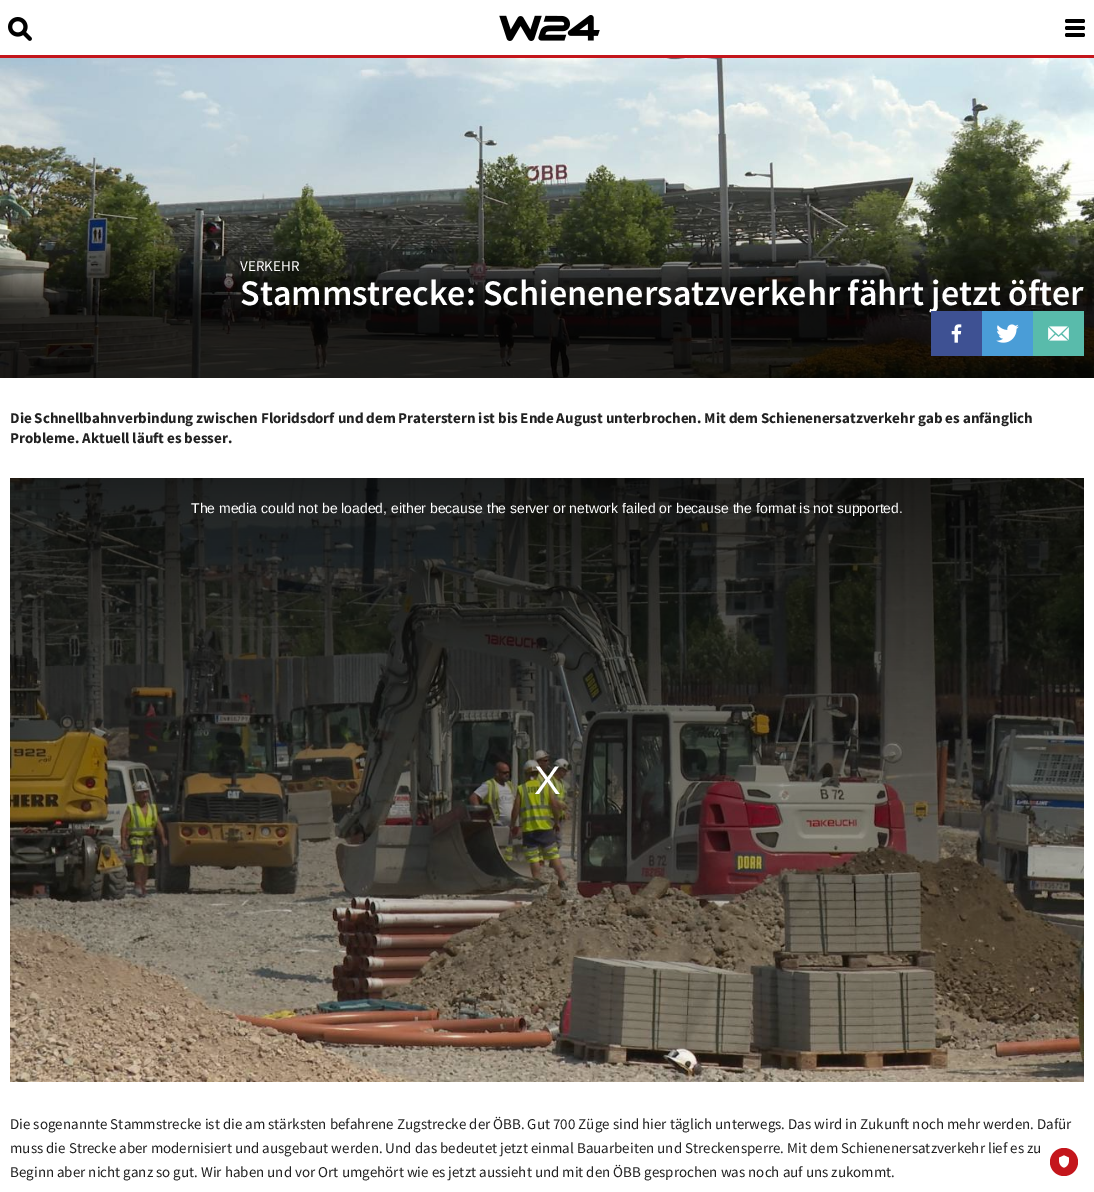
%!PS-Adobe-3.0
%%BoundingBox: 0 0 1094 1192
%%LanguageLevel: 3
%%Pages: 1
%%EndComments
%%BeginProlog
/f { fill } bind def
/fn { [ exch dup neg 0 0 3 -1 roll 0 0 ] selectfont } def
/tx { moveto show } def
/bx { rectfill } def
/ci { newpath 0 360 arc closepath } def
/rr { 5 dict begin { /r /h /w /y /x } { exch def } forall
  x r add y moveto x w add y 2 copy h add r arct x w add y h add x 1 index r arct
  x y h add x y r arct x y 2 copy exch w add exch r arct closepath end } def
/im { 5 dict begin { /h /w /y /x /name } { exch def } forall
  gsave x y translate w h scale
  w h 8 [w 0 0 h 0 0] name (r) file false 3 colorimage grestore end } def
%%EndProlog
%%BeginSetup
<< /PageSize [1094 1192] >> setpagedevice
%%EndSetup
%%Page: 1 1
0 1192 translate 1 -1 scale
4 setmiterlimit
1 setgray
0 0 1094 1192 bx
0.769 0.086 0.11 setrgbcolor
0 55 1094 3 bx
(image0.raw) 8 17 24 24 im
(image1.raw) 499 15 101 26 im
0 setgray
1065 19 20 4 2 rr f
1065 26 20 4 2 rr f
1065 33 20 4 2 rr f
(image2.raw) 0 58 1094 320 im
/SourceSansPro-Regular 15 fn
1 setgray
(VERKEHR) 240 271 tx
/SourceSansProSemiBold-SemiBold 36 fn
(Stammstrecke: Schienenersatzverkehr fährt jetzt öfter) 240 305 tx
0.243 0.318 0.576 setrgbcolor
931 311 51 45 bx
(image3.raw) 951 324 11 19 im
0.29 0.616 0.843 setrgbcolor
982 311 51 45 bx
(image4.raw) 996 324 23 19 im
0.349 0.733 0.671 setrgbcolor
1033 311 51 45 bx
(image5.raw) 1048 326 21 15 im
/SourceSansPro-Bold 15 fn
0.133 setgray
(Die Schnellbahnverbindung zwischen Floridsdorf und dem Praterstern ist bis Ende August unterbrochen. Mit dem Schienenersatzverkehr gab es anfänglich) 10 423 tx
(Probleme. Aktuell läuft es besser.) 10 443 tx
(image6.raw) 10 478 1074 604 im
/LiberationSans-Regular 14 fn
1 setgray
(The media could not be loaded, either because the server or network failed or because the format is not supported.) 191 513 tx
/LiberationSans-Regular 40 fn
(X) 534 794 tx
/SourceSansPro-Regular 15 fn
0.133 setgray
(Die sogenannte Stammstrecke ist die am stärksten befahrene Zugstrecke der ÖBB. Gut 700 Züge sind hier täglich unterwegs. Das wird in Zukunft noch mehr werden. Dafür) 10 1129 tx
(muss die Strecke aber modernisiert und ausgebaut werden. Und das bedeutet jetzt einmal Bauarbeiten und Streckensperre. Mit dem Schienenersatzverkehr lief es zu) 10 1153 tx
(Beginn aber nicht ganz so gut. Wir haben und vor Ort umgehört wie es jetzt aussieht und mit den ÖBB gesprochen was noch auf uns zukommt.) 10 1177 tx
0.769 0.086 0.11 setrgbcolor
1064 1162 14 ci f
(image7.raw) 1059 1155 10 13 im
showpage
%%EOF
